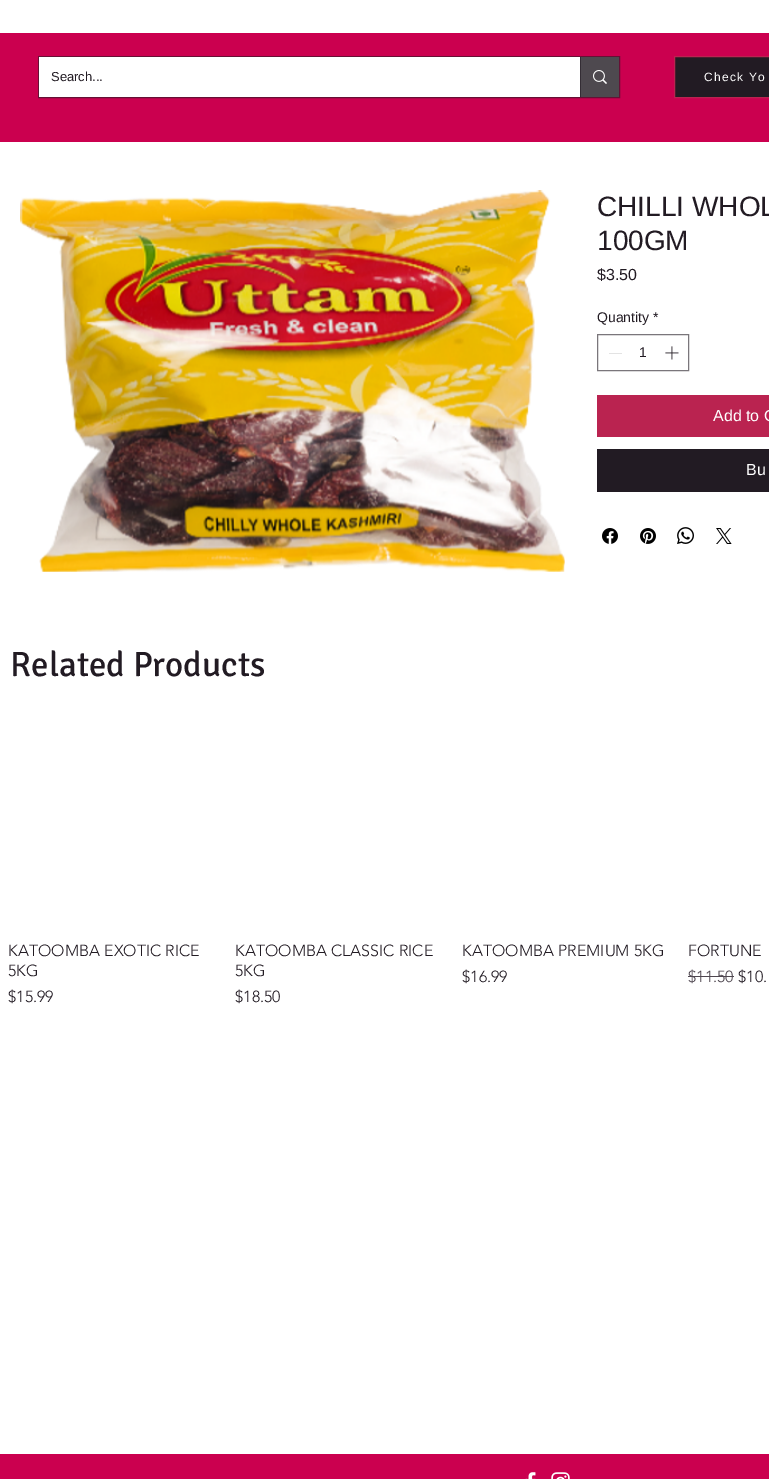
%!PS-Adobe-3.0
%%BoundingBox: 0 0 769 1479
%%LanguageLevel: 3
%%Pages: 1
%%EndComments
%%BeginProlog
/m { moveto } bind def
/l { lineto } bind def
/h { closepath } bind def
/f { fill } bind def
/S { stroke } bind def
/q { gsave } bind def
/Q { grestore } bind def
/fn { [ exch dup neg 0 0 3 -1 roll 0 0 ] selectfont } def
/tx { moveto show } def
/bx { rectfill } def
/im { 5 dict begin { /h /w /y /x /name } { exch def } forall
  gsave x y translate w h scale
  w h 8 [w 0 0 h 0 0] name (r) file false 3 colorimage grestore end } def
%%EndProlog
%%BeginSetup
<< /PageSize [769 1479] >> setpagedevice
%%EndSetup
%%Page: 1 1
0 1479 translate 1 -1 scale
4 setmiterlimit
1 setgray
0 0 769 1479 bx
0.796 0 0.31 setrgbcolor
0 33 769 109 bx
0.4 0.063 0.208 setrgbcolor
38.5 56.5 581 41 rectstroke
1 setgray
39 57 541 40 bx
/LiberationSans-Regular 13 fn
0.133 0.106 0.137 setrgbcolor
(Search...) 51 81 tx
0.306 0.286 0.31 setrgbcolor
581 57 38 40 bx
0.204 0.176 0.208 setrgbcolor
580 57 1 40 bx
(image0.raw) 593 70 14 14 im
0.133 0.106 0.137 setrgbcolor
674.5 56.5 m 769.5 56.5 l 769.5 97.5 l 674.5 97.5 l h q f Q
0.729 0.137 0.314 setrgbcolor
S
/LiberationSans-Regular 12 fn
1 setgray
704 81 m 1.25 0 (Check Yo) ashow
(image1.raw) 20 190 545 382 im
/LiberationSans-Regular 28 fn
0.133 0.106 0.137 setrgbcolor
(CHILLI WHOL) 597 216 tx
(100GM) 597 250 tx
/LiberationSans-Regular 16 fn
($3.50) 597 280 tx
/LiberationSans-Regular 14 fn
(Quantity *) 597 322 tx
0.478 0.463 0.482 setrgbcolor
597.5 334.5 91 36 rectstroke
0.89 setgray
609 353 13 1 bx
0.133 0.106 0.137 setrgbcolor
(1) 639 357 tx
(image2.raw) 665 346 14 14 im
0.729 0.137 0.314 setrgbcolor
597 395 172 42 bx
/LiberationSans-Regular 16 fn
1 setgray
(Add to C) 713 421 tx
0.133 0.106 0.137 setrgbcolor
597 449 172 43 bx
1 setgray
(Bu) 746 475 tx
(image3.raw) 602 528 16 16 im
(image4.raw) 640 528 16 16 im
(image5.raw) 677 527 17 17 im
(image6.raw) 716 528 16 16 im
/Signika-Regular 35 fn
0.133 0.106 0.137 setrgbcolor
(Related Products) 10 676 tx
/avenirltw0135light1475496-Light 16 fn
(KATOOMBA EXOTIC RICE) 8 956 tx
(5KG) 8 976 tx
($15.99) 8 1002 tx
(KATOOMBA CLASSIC RICE) 235 956 tx
(5KG) 235 976 tx
($18.50) 235 1002 tx
(KATOOMBA PREMIUM 5KG) 462 956 tx
($16.99) 462 982 tx
(FORTUNE) 688 956 tx
0.306 0.275 0.31 setrgbcolor
($11.50) 688 982 tx
688 976 46 1 bx
0.133 0.106 0.137 setrgbcolor
($10.) 738 982 tx
0.796 0 0.31 setrgbcolor
0 1454 769 25 bx
(image7.raw) 525 1472 11 7 im
(image8.raw) 551 1472 19 7 im
showpage
%%EOF
